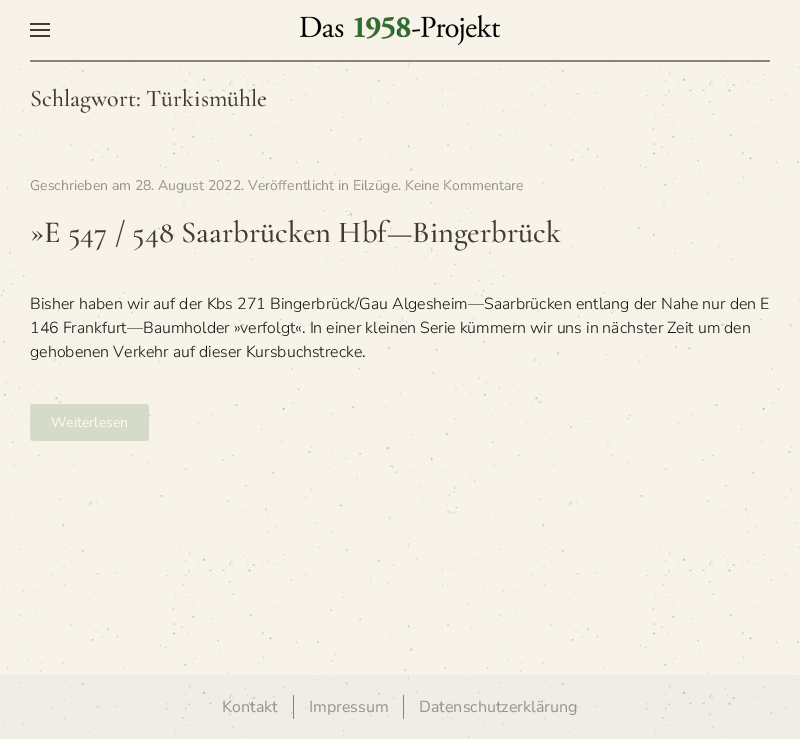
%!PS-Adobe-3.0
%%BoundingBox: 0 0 800 739
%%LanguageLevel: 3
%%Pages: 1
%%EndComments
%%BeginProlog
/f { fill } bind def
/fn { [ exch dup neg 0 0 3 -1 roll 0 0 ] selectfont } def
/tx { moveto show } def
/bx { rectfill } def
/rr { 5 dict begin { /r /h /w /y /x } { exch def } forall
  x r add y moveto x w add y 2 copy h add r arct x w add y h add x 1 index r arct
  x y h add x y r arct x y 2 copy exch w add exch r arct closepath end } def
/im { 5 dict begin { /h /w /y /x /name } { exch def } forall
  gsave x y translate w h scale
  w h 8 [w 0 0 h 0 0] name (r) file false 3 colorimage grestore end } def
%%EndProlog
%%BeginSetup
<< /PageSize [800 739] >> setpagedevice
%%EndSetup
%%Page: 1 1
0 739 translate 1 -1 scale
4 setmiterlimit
0.969 0.953 0.914 setrgbcolor
0 0 800 739 bx
0.533 0.514 0.498 setrgbcolor
30 60 740 2 bx
0.251 0.235 0.196 setrgbcolor
30 23 20 2 bx
30 29 20 2 bx
30 35 20 2 bx
(image0.raw) 300 15 200 30 im
(image1.raw) 1 62 799 613 im
/CormorantGaramond-Light 24 fn
(Schlagwort: Türkismühle) 30 106 tx
/NunitoSans-ExtraLight 14 fn
0.596 0.573 0.557 setrgbcolor
(Geschrieben am 28. August 2022. Veröffentlicht in Eilzüge. Keine Kommentare) 30 190 tx
/CormorantGaramond-Light 30.6 fn
0.251 0.235 0.196 setrgbcolor
(»E 547 / 548 Saarbrücken Hbf—Bingerbrück) 30 242 tx
/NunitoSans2-ExtraLight 16 fn
0.078 setgray
(Bisher haben wir auf der Kbs 271 Bingerbrück/Gau Algesheim—Saarbrücken entlang der Nahe nur den E) 30 309 tx
(146 Frankfurt—Baumholder »verfolgt«. In einer kleinen Serie kümmern wir uns in nächster Zeit um den) 30 333 tx
(gehobenen Verkehr auf dieser Kursbuchstrecke.) 30 357 tx
0.839 0.855 0.788 setrgbcolor
30 404 119 37 3 rr f
/NunitoSans-ExtraLight 14 fn
1 0.988 0.961 setrgbcolor
(Weiterlesen) 51 427 tx
0.941 0.929 0.902 setrgbcolor
0 675 800 64 bx
(image2.raw) 1 675 799 64 im
/NunitoSans-ExtraLight 16 fn
0.596 0.573 0.557 setrgbcolor
(Kontakt) 222 712 tx
0.533 0.514 0.498 setrgbcolor
293 695 1 24 bx
0.596 0.573 0.557 setrgbcolor
(Impressum) 309 712 tx
0.533 0.514 0.498 setrgbcolor
403 695 1 24 bx
0.596 0.573 0.557 setrgbcolor
(Datenschutzerklärung) 419 712 tx
showpage
%%EOF
